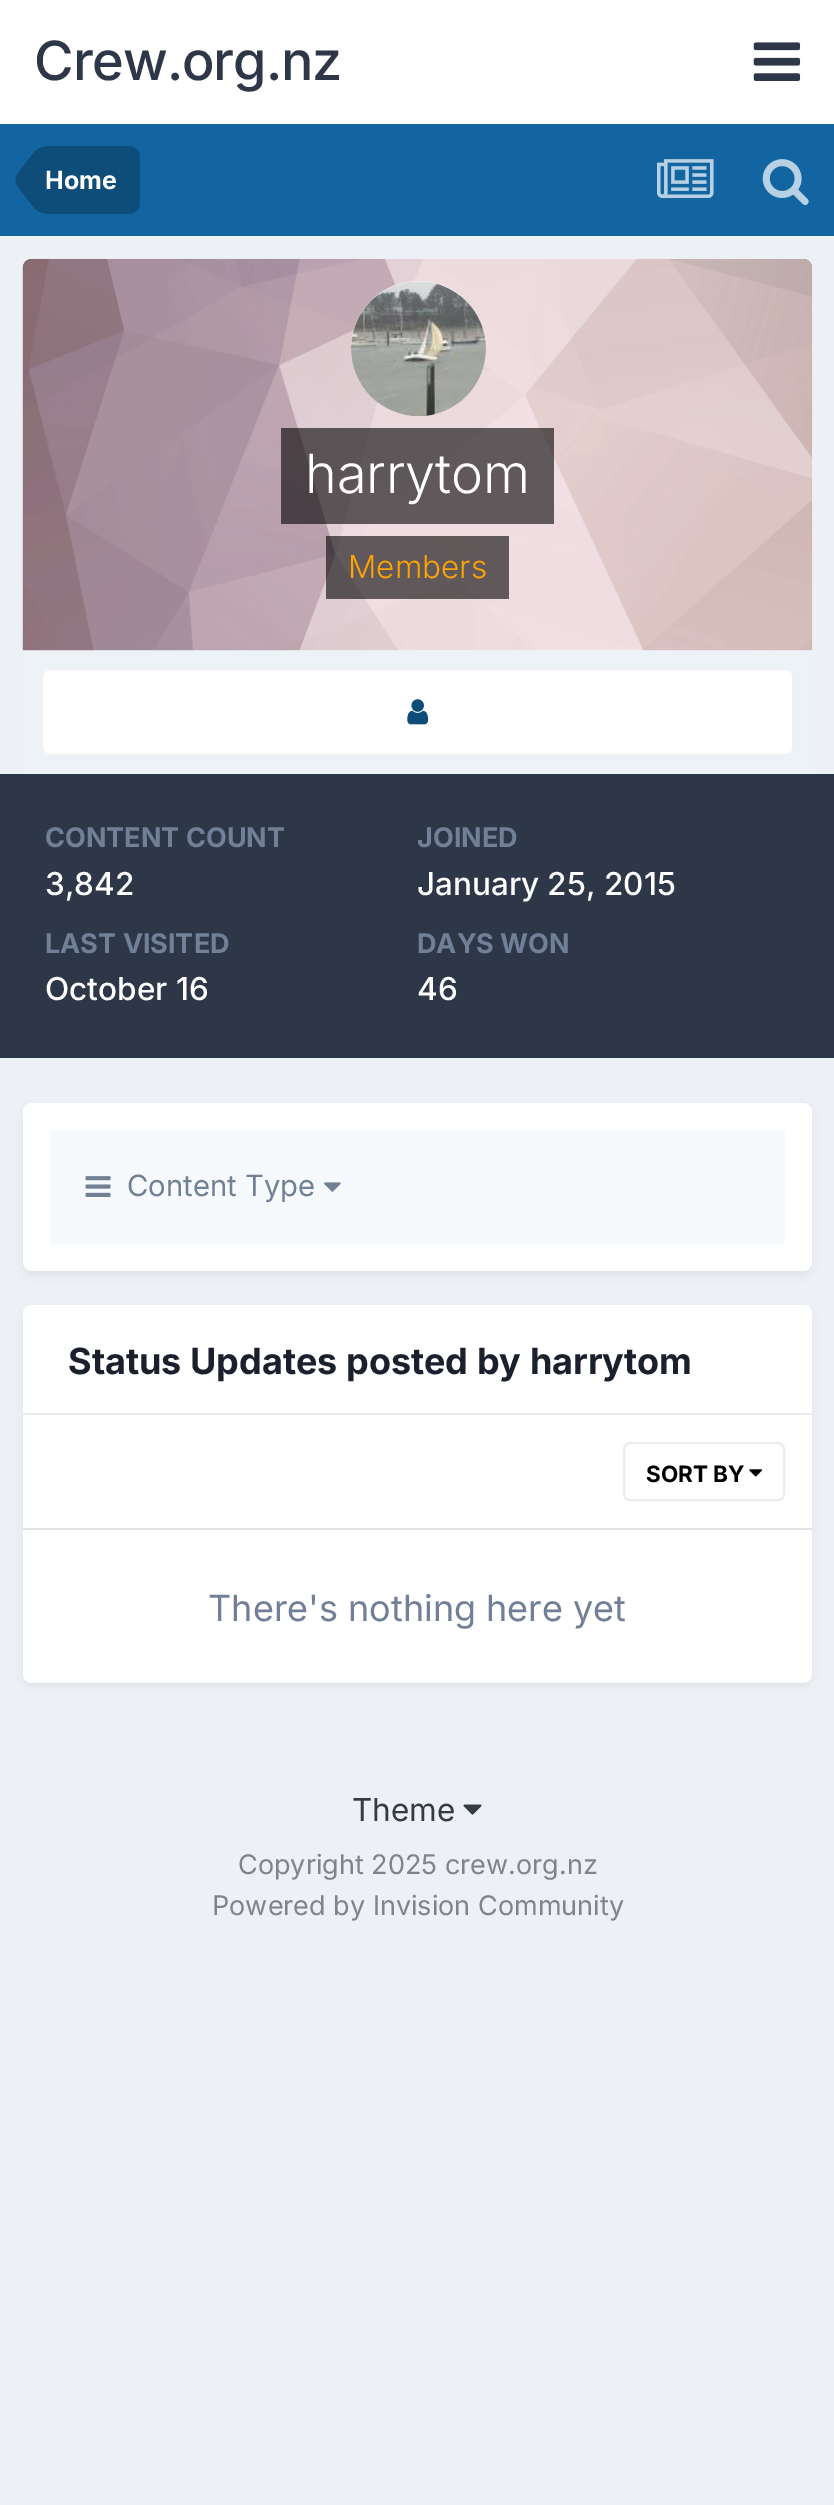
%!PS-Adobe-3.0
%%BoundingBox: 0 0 834 2505
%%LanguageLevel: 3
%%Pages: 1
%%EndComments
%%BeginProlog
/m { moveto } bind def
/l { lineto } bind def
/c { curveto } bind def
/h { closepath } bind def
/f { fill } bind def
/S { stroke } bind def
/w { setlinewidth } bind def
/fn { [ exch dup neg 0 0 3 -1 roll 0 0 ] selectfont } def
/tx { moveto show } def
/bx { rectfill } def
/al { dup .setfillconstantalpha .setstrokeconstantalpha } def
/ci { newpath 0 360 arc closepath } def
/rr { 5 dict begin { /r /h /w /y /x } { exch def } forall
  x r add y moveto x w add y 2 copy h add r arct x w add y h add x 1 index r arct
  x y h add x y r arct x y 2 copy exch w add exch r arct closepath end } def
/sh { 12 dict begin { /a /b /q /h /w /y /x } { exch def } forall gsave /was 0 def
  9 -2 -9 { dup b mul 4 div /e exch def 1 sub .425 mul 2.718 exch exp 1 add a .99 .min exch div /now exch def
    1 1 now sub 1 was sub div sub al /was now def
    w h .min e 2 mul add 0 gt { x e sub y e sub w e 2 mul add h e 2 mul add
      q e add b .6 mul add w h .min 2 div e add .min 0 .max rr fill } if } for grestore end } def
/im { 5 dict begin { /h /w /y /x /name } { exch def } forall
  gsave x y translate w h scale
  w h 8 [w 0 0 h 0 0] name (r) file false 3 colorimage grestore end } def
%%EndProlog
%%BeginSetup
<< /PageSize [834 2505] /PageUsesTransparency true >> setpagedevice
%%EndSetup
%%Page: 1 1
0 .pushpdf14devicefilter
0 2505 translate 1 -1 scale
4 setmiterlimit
0.929 0.941 0.957 setrgbcolor
0 0 834 2505 bx
1 setgray
0 0 834 124 bx
/Inter-Medium 54 fn
0.176 0.216 0.282 setrgbcolor
34 80 m -1.1 0 (Crew.org.nz) ashow
(image0.raw) 753 42 48 39 im
0.071 0.396 0.631 setrgbcolor
0 124 834 112 bx
0.055 0.298 0.475 setrgbcolor
45 146 m 129 146 l 135 146 140 151 140 157 c 140 203 l 140 209 135 214 129 214 c 45 214 l h f
45 180 m 45 213 l 40 213 35.5 210.5 32 205 c 21.5 191.5 l 16 183.5 l 15.5 182 15.5 181 15.5 180 c h f
45 180 m 15.5 180 l 15.5 179 15.5 178 16 176.5 c 21.5 168.5 l 32 155 l 35.5 149.5 40 147 45 147 c h f
/Inter-Bold 25 fn
1 setgray
(Home) 45 189 tx
(image1.raw) 657 159 57 39 im
(image2.raw) 762 159 47 46 im
0.929 0.949 0.969 setrgbcolor
23 650 789 124 bx
(image3.raw) 22 258 791 393 im
1 setgray
418.5 348.5 67.5 ci f
(image4.raw) 351 281 135 136 im
0.6 al
0 setgray
281 428 273 96 bx
/Inter-Light 54 fn
1 al
1 setgray
(harrytom) 305 493 tx
0.6 al
0 setgray
326 536 183 63 bx
/Inter-Light 31.5 fn
1 al
1 0.647 0 setrgbcolor
(Members) 348 578 tx
1 setgray
41 668 753 88 9 rr f
0.07 al
0.055 0.298 0.475 setrgbcolor
2 w
42 669 751 86 8 rr S
1 al
(image5.raw) 407 699 22 26 im
0.176 0.216 0.282 setrgbcolor
0 774 834 284 bx
/Inter-Bold 27 fn
0.443 0.502 0.588 setrgbcolor
(CONTENT COUNT) 45 847 tx
/Inter-Medium 31.5 fn
1 setgray
(3,842) 45 895 tx
/Inter-Bold 27 fn
0.443 0.502 0.588 setrgbcolor
(JOINED) 417 847 tx
/Inter-Medium 31.5 fn
1 setgray
(January 25, 2015) 417 895 tx
/Inter-Bold 27 fn
0.443 0.502 0.588 setrgbcolor
(LAST VISITED) 45 953 tx
/Inter-Medium 31.5 fn
1 setgray
(October 16) 45 1000 tx
/Inter-Bold 27 fn
0.443 0.502 0.588 setrgbcolor
(DAYS WON) 417 953 tx
/Inter-Medium 31.5 fn
1 setgray
(46) 417 1000 tx
0.176 0.216 0.282 setrgbcolor
25 1109 785 165 7 4.5 0.1 sh
1 setgray
23 1103 789 168 9 rr f
0.969 0.98 0.988 setrgbcolor
50 1130 735 114 bx
(image6.raw) 85 1176 26 21 im
/Inter-Regular 29.25 fn
0.443 0.502 0.588 setrgbcolor
(Content Type) 127 1196 tx
(image7.raw) 324 1182 17 10 im
0.176 0.216 0.282 setrgbcolor
25 1312 785 373 7 4.5 0.1 sh
1 setgray
23 1305 789 378 9 rr f
32 1305 m 803 1305 l 808 1305 812 1309 812 1314 c 812 1415 l 23 1415 l 23 1314 l 23 1309 27 1305 32 1305 c h f
0.918 0.925 0.937 setrgbcolor
23 1413 789 2 bx
/Inter-Bold 36 fn
0.102 0.125 0.173 setrgbcolor
(Status Updates posted by harrytom) 68 1374 tx
0.882 0.886 0.89 setrgbcolor
23 1528 789 2 bx
(image8.raw) 749 1469 13 8 im
0.922 0.925 0.925 setrgbcolor
624 1443 160 57 6 rr S
/Inter-Bold 22.5 fn
0 setgray
(SORT BY) 646 1482 tx
/Inter-Regular 36 fn
0.443 0.502 0.588 setrgbcolor
(There's nothing here yet) 208 1621 tx
/Inter-Regular 31.5 fn
0.208 0.235 0.255 setrgbcolor
(Theme) 352 1821 tx
(image9.raw) 463 1804 19 11 im
/Inter-Regular 27 fn
0.498 0.518 0.537 setrgbcolor
(Copyright 2025 crew.org.nz) 238 1874 tx
(Powered by Invision Community) 212 1915 tx
.poppdf14devicefilter showpage
%%EOF
